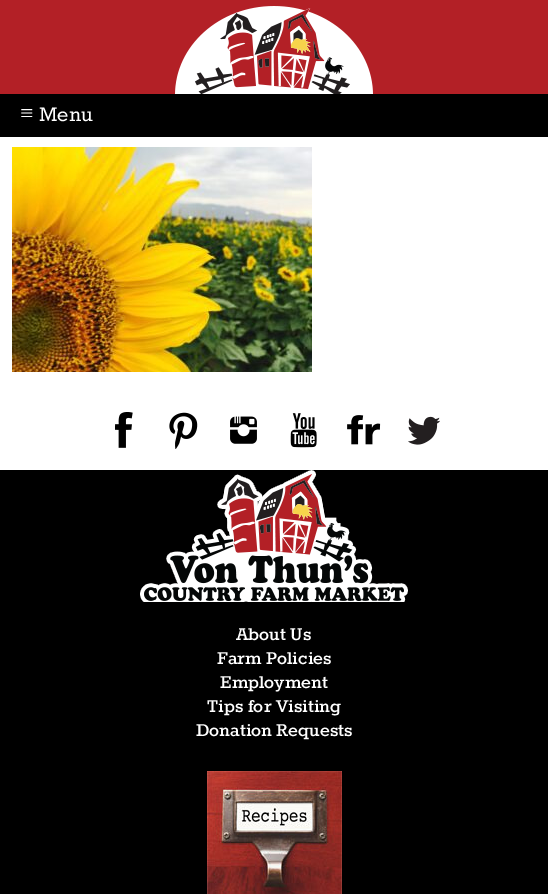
%!PS-Adobe-3.0
%%BoundingBox: 0 0 548 894
%%LanguageLevel: 3
%%Pages: 1
%%EndComments
%%BeginProlog
/fn { [ exch dup neg 0 0 3 -1 roll 0 0 ] selectfont } def
/tx { moveto show } def
/bx { rectfill } def
/im { 5 dict begin { /h /w /y /x /name } { exch def } forall
  gsave x y translate w h scale
  w h 8 [w 0 0 h 0 0] name (r) file false 3 colorimage grestore end } def
%%EndProlog
%%BeginSetup
<< /PageSize [548 894] >> setpagedevice
%%EndSetup
%%Page: 1 1
0 894 translate 1 -1 scale
4 setmiterlimit
0.702 0.125 0.149 setrgbcolor
0 0 548 894 bx
(image0.raw) 175 6 198 88 im
0 setgray
0 94 548 43 bx
/LiberationSerif-Regular 24 fn
1 setgray
(≡) 20 121 tx
/Rokkitt-Regular 24 fn
(Menu) 39 121 tx
0 137 548 333 bx
(image1.raw) 12 147 300 225 im
(image2.raw) 115 412 18 36 im
(image3.raw) 169 412 29 37 im
(image4.raw) 230 416 27 28 im
(image5.raw) 290 413 27 35 im
(image6.raw) 347 415 34 30 im
(image7.raw) 408 416 32 29 im
0 setgray
0 470 548 424 bx
(image8.raw) 140 470 268 132 im
/Rokkitt-Bold 20 fn
1 setgray
(About Us) 236 640 tx
(Farm Policies) 217 664 tx
(Employment) 220 688 tx
(Tips for Visiting) 207 712 tx
(Donation Requests) 196 736 tx
(image9.raw) 207 771 135 123 im
showpage
%%EOF
